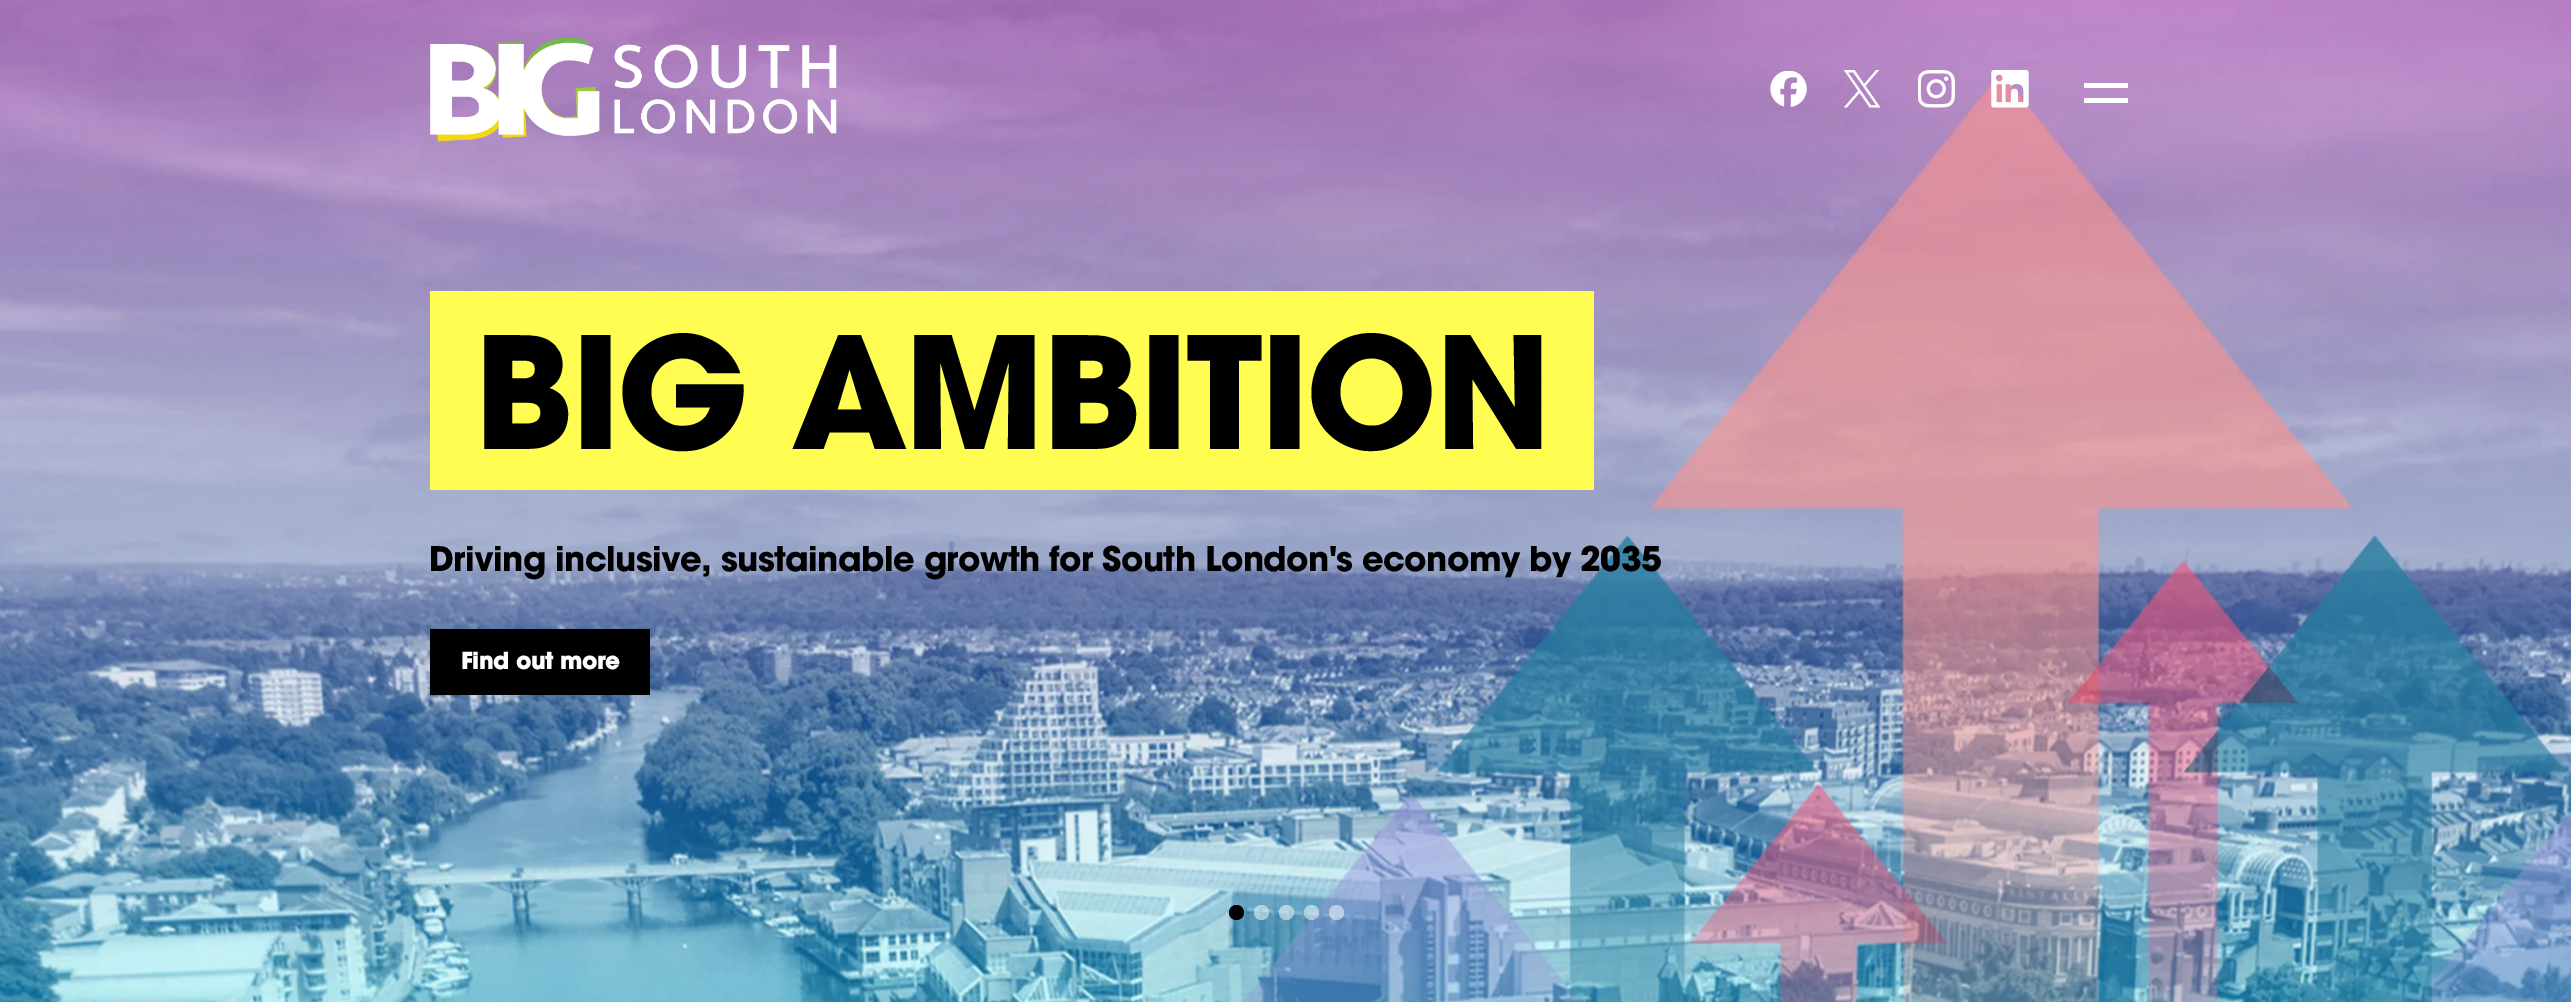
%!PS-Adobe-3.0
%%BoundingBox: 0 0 2571 1002
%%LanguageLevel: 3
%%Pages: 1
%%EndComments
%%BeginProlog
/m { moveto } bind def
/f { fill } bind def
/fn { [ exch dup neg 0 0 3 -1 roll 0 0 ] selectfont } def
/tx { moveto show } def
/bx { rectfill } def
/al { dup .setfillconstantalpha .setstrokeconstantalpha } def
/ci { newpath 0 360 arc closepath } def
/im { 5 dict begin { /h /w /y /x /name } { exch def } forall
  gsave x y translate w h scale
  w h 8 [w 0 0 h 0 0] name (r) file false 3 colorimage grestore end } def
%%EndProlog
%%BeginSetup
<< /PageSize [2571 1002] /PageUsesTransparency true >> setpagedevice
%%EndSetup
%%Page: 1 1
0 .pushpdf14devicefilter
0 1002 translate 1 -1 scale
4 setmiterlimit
1 setgray
0 0 2571 1002 bx
(image5.raw) 0 0 2571 1002 im
(image0.raw) 430 37 407 105 im
(image1.raw) 1770 71 37 36 im
(image2.raw) 1844 70 37 38 im
(image3.raw) 1918 70 37 38 im
(image4.raw) 1991 70 38 38 im
2084 83 44 5 bx
2084 98 44 5 bx
1 0.988 0.322 setrgbcolor
430 291 1164 199 bx
/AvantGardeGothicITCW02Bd-Regular 154.25 fn
0 setgray
474 449 m -3.1 0 (BIG AMBITION) ashow
/AvantGardeGothicITCW02Bd-Regular 33.75 fn
429 571 m -0.68 0 (Driving inclusive, sustainable growth for South London's economy by 2035) ashow
430 629 220 66 bx
/AvantGardeGothicITCW02Bd-Bold 22.5 fn
1 setgray
(Find out more) 461 669 tx
0 setgray
1236.5 912.5 7.5 ci f
0.5 al
1 setgray
1261.5 912.5 7.5 ci f
1286.5 912.5 7.5 ci f
1311.5 912.5 7.5 ci f
1336.5 912.5 7.5 ci f
.poppdf14devicefilter showpage
%%EOF
